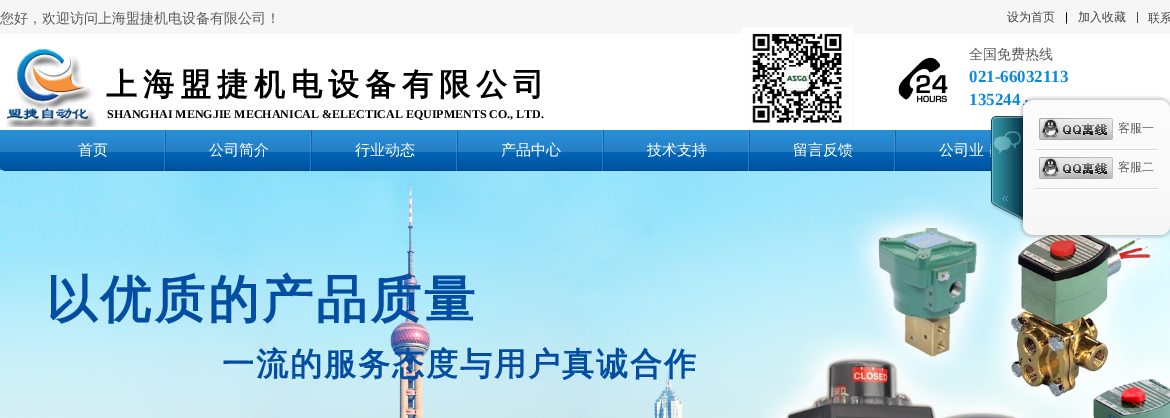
%!PS-Adobe-3.0
%%BoundingBox: 0 0 1170 418
%%LanguageLevel: 3
%%Pages: 1
%%EndComments
%%BeginProlog
/m { moveto } bind def
/f { fill } bind def
/fn { [ exch dup neg 0 0 3 -1 roll 0 0 ] selectfont } def
/tx { moveto show } def
/bx { rectfill } def
/al { dup .setfillconstantalpha .setstrokeconstantalpha } def
/rr { 5 dict begin { /r /h /w /y /x } { exch def } forall
  x r add y moveto x w add y 2 copy h add r arct x w add y h add x 1 index r arct
  x y h add x y r arct x y 2 copy exch w add exch r arct closepath end } def
/sh { 12 dict begin { /a /b /q /h /w /y /x } { exch def } forall gsave /was 0 def
  9 -2 -9 { dup b mul 4 div /e exch def 1 sub .425 mul 2.718 exch exp 1 add a .99 .min exch div /now exch def
    1 1 now sub 1 was sub div sub al /was now def
    w h .min e 2 mul add 0 gt { x e sub y e sub w e 2 mul add h e 2 mul add
      q e add b .6 mul add w h .min 2 div e add .min 0 .max rr fill } if } for grestore end } def
/im { 5 dict begin { /h /w /y /x /name } { exch def } forall
  gsave x y translate w h scale
  w h 8 [w 0 0 h 0 0] name (r) file false 3 colorimage grestore end } def
%%EndProlog
%%BeginSetup
<< /PageSize [1170 418] /PageUsesTransparency true >> setpagedevice
%%EndSetup
%%Page: 1 1
0 .pushpdf14devicefilter
0 418 translate 1 -1 scale
4 setmiterlimit
0.965 setgray
0 0 1170 418 bx
/WenQuanYiZenHei-Medium 14 fn
0.353 setgray
(您好，欢迎访问上海盟捷机电设备有限公司！) 0 23 tx
/WenQuanYiZenHei-Medium 12 fn
0.263 setgray
(设为首页) 1007 21 tx
/LiberationSans-Regular 12 fn
0 setgray
(|) 1065 21 tx
/WenQuanYiZenHei-Medium 12 fn
0.263 setgray
(加入收藏) 1078 21 tx
1137 12 1 11 bx
(联系) 1148 22 tx
1 setgray
0 34 1170 96 bx
(image0.raw) 5 49 92 78 im
/WenQuanYiZenHei-Bold 31 fn
0 setgray
106 95 m 6 0 (上海盟捷机电设备有限公司) ashow
(image1.raw) 742 27 112 101 im
(image2.raw) 898 57 50 46 im
/WenQuanYiZenHei-Medium 14 fn
0.353 setgray
(全国免费热线) 969 59 tx
/LiberationSerif-Bold 17 fn
0.043 0.537 0.867 setrgbcolor
(021-66032113) 969 82 tx
(135244) 969 105 tx
/LiberationSerif-Bold 12 fn
0 setgray
(SHANGHAI MENGJIE MECHANICAL &ELECTICAL EQUIPMENTS CO., LTD.) 107 118 tx
0.043 0.537 0.867 setrgbcolor
0 130 2 40 bx
(image5.raw) 0 170 1170 248 im
(image3.raw) 0 130 991 41 im
(image4.raw) 164 130 2 41 im
/WenQuanYiZenHei-Medium 15 fn
1 setgray
(首页) 78 155 tx
(image4.raw) 310 130 2 41 im
(公司简介) 209 155 tx
(image4.raw) 456 130 2 41 im
(行业动态) 355 155 tx
(image4.raw) 602 130 2 41 im
(产品中心) 501 155 tx
(image4.raw) 748 130 2 41 im
(技术支持) 647 155 tx
(image4.raw) 894 130 2 41 im
(留言反馈) 793 155 tx
(公司业) 939 155 tx
/WenQuanYiZenHei-Bold 51 fn
0.012 0.306 0.635 setrgbcolor
46 317 m 3 0 (以优质的产品质量) ashow
/WenQuanYiZenHei-Bold 32 fn
222 375 m 2 0 (一流的服务态度与用户真诚合作) ashow
(image6.raw) 990 116 33 108 im
0 setgray
1021 98 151 139 12 1.5 0.2 sh
0.949 setgray
1023 100 147 135 10 rr f
(image7.raw) 1023 100 147 135 im
(image8.raw) 1035 149 123 2 im
(image9.raw) 1039 118 74 22 im
/WenQuanYiZenHei-Medium 12 fn
0.353 setgray
(客服一) 1118 132 tx
(image8.raw) 1035 188 123 2 im
(image10.raw) 1039 157 74 22 im
(客服二) 1118 171 tx
.poppdf14devicefilter showpage
%%EOF
